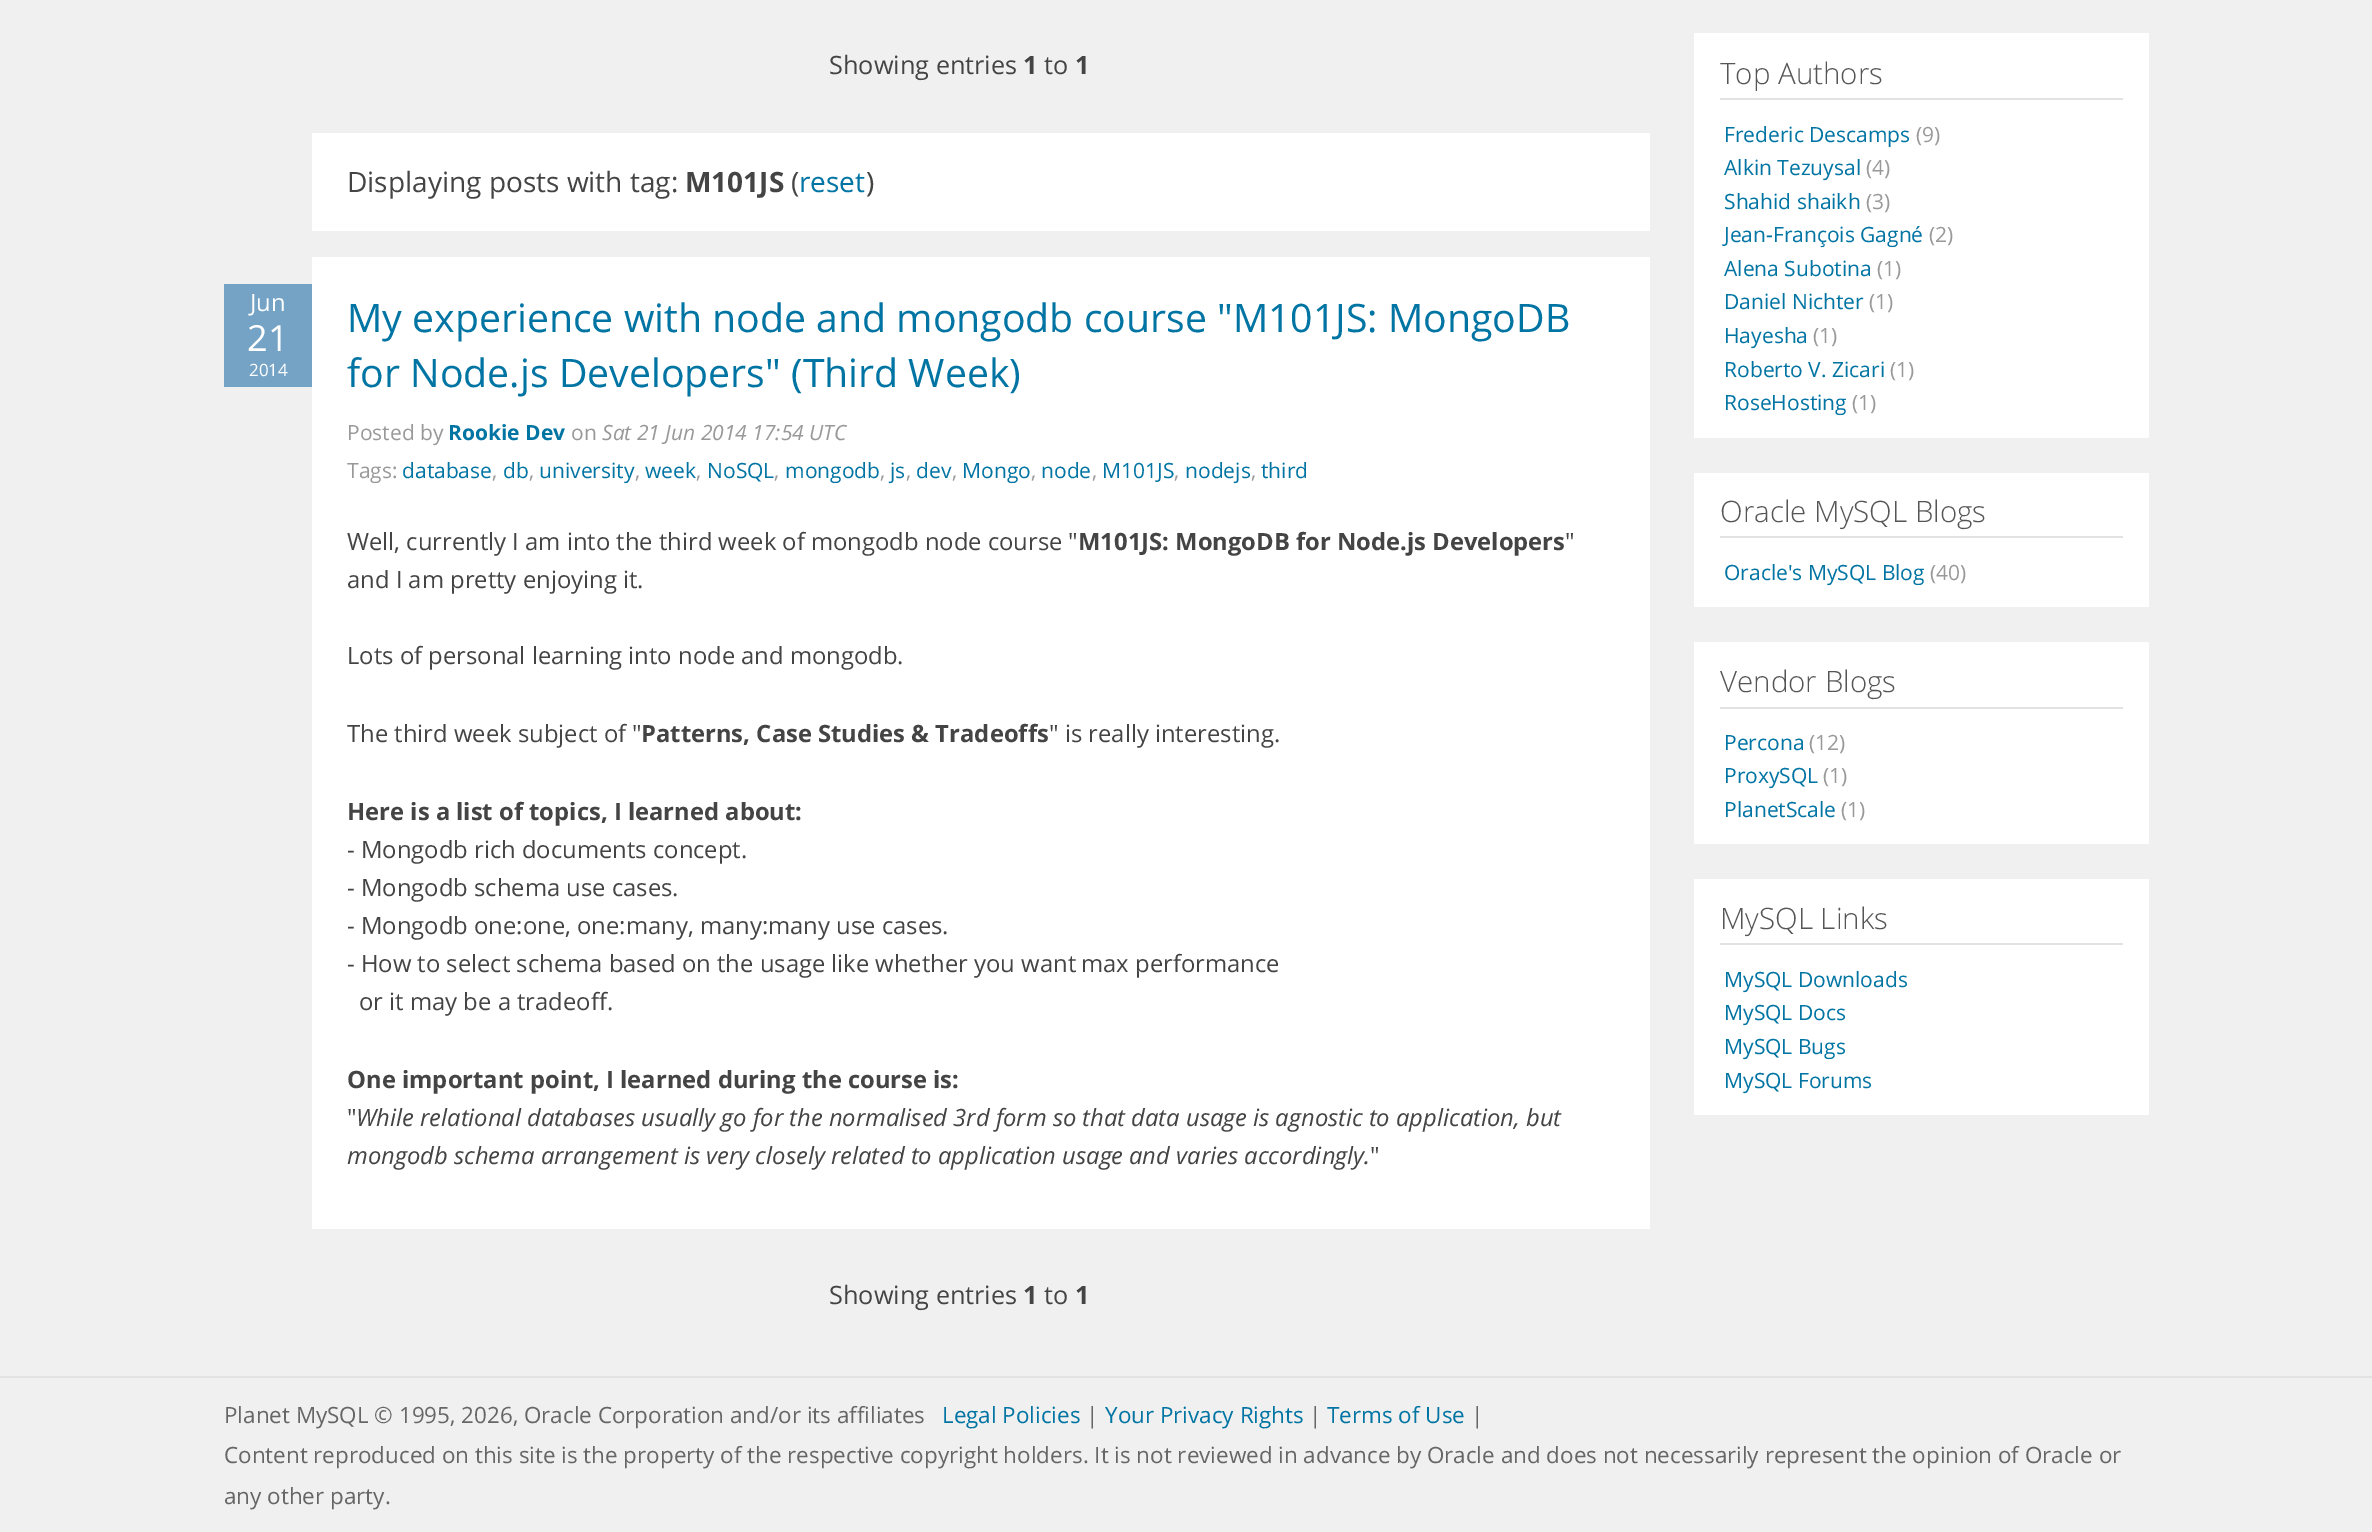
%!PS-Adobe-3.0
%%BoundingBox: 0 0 2372 1532
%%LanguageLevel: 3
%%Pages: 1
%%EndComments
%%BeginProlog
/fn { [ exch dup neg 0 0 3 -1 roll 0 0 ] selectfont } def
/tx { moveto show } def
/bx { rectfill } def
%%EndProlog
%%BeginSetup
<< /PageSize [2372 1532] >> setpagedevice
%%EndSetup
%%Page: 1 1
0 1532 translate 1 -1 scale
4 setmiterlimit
0.941 setgray
0 0 2372 1532 bx
/OpenSans-Regular 25.25 fn
0.267 setgray
(Showing entries) 829 74 tx
/OpenSans-Bold 25.25 fn
(1) 1023 74 tx
/OpenSans-Regular 25.25 fn
(to) 1044 74 tx
/OpenSans-Bold 25.25 fn
(1) 1075 74 tx
1 setgray
312 133 1338 98 bx
/OpenSans-Regular 28 fn
0.267 setgray
(Displaying posts with tag:) 347 192 tx
/OpenSans-Bold 28 fn
(M101JS) 685 192 tx
/OpenSans-Regular 28 fn
(\() 791 192 tx
0 0.455 0.639 setrgbcolor
(reset) 799 192 tx
0.267 setgray
(\)) 866 192 tx
1 setgray
312 257 1338 972 bx
0.455 0.639 0.776 setrgbcolor
224 284 88 103 bx
/OpenSans-Regular 23.8 fn
1 setgray
(Jun) 250 311 tx
/OpenSans-Regular 36 fn
(21) 247 351 tx
/OpenSans-Regular 17 fn
(2014) 249 376 tx
/OpenSans-Regular 39.2 fn
0 0.455 0.639 setrgbcolor
(My experience with node and mongodb course "M101JS: MongoDB) 347 332 tx
(for Node.js Developers" \(Third Week\)) 347 387 tx
/OpenSans-Regular 21 fn
0.6 setgray
(Posted by) 347 440 tx
/OpenSans-Bold 21 fn
0 0.455 0.639 setrgbcolor
(Rookie Dev) 448 440 tx
/OpenSans-Regular 21 fn
0.6 setgray
(on) 571 440 tx
/OpenSans-Italic 21 fn
(Sat 21 Jun 2014 17:54 UTC) 602 440 tx
/OpenSans-Regular 21 fn
(Tags:) 347 478 tx
0 0.455 0.639 setrgbcolor
(database) 402 478 tx
0.6 setgray
(,) 492 478 tx
0 0.455 0.639 setrgbcolor
(db) 503 478 tx
0.6 setgray
(,) 529 478 tx
0 0.455 0.639 setrgbcolor
(university) 539 478 tx
0.6 setgray
(,) 635 478 tx
0 0.455 0.639 setrgbcolor
(week) 645 478 tx
0.6 setgray
(,) 696 478 tx
0 0.455 0.639 setrgbcolor
(NoSQL) 707 478 tx
0.6 setgray
(,) 774 478 tx
0 0.455 0.639 setrgbcolor
(mongodb) 785 478 tx
0.6 setgray
(,) 880 478 tx
0 0.455 0.639 setrgbcolor
(js) 890 478 tx
0.6 setgray
(,) 906 478 tx
0 0.455 0.639 setrgbcolor
(dev) 916 478 tx
0.6 setgray
(,) 952 478 tx
0 0.455 0.639 setrgbcolor
(Mongo) 962 478 tx
0.6 setgray
(,) 1031 478 tx
0 0.455 0.639 setrgbcolor
(node) 1041 478 tx
0.6 setgray
(,) 1092 478 tx
0 0.455 0.639 setrgbcolor
(M101JS) 1102 478 tx
0.6 setgray
(,) 1174 478 tx
0 0.455 0.639 setrgbcolor
(nodejs) 1185 478 tx
0.6 setgray
(,) 1251 478 tx
0 0.455 0.639 setrgbcolor
(third) 1261 478 tx
/OpenSans-Regular 23.8 fn
0.267 setgray
(Well, currently I am into the third week of mongodb node course) 347 550 tx
(") 1068 550 tx
/OpenSans-Bold 23.8 fn
(M101JS: MongoDB for Node.js Developers) 1078 550 tx
/OpenSans-Regular 23.8 fn
(") 1565 550 tx
(and I am pretty enjoying it.) 347 588 tx
(Lots of personal learning into node and mongodb.) 347 664 tx
(The third week subject of ") 347 742 tx
/OpenSans-Bold 23.8 fn
(Patterns, Case Studies & Tradeoffs) 641 742 tx
/OpenSans-Regular 23.8 fn
(" is really interesting.) 1049 742 tx
/OpenSans-Bold 23.8 fn
(Here is a list of topics, I learned about:) 347 820 tx
/OpenSans-Regular 23.8 fn
(- Mongodb rich documents concept.) 347 858 tx
(- Mongodb schema use cases.) 347 896 tx
(- Mongodb one:one, one:many, many:many use cases.) 347 934 tx
(- How to select schema based on the usage like whether you want) 347 972 tx
(max performance) 1081 972 tx
(or it may be a tradeoff.) 359 1010 tx
/OpenSans-Bold 23.8 fn
(One important point, I learned during the course is:) 347 1088 tx
/OpenSans-Regular 23.8 fn
(") 347 1126 tx
/OpenSans-Italic 23.8 fn
(While relational databases usually go for the normalised 3rd form so that data usage is agnostic to application, but) 356 1126 tx
(mongodb schema arrangement is very closely related to application usage) 347 1164 tx
(and varies accordingly.) 1129 1164 tx
/OpenSans-Regular 23.8 fn
(") 1370 1164 tx
/OpenSans-Regular 25.25 fn
(Showing entries) 829 1304 tx
/OpenSans-Bold 25.25 fn
(1) 1023 1304 tx
/OpenSans-Regular 25.25 fn
(to) 1044 1304 tx
/OpenSans-Bold 25.25 fn
(1) 1075 1304 tx
1 setgray
1694 33 455 405 bx
0.886 setgray
1720 98 403 2 bx
/OpenSans-Light 29.5 fn
0.333 setgray
(Top Authors) 1720 84 tx
/OpenSans-Regular 21 fn
0 0.455 0.639 setrgbcolor
(Frederic Descamps) 1724 142 tx
0.6 setgray
(\(9\)) 1916 142 tx
0 0.455 0.639 setrgbcolor
(Alkin Tezuysal) 1724 175 tx
0.6 setgray
(\(4\)) 1866 175 tx
0 0.455 0.639 setrgbcolor
(Shahid shaikh) 1724 209 tx
0.6 setgray
(\(3\)) 1866 209 tx
0 0.455 0.639 setrgbcolor
(Jean-François Gagné) 1724 242 tx
0.6 setgray
(\(2\)) 1929 242 tx
0 0.455 0.639 setrgbcolor
(Alena Subotina) 1724 276 tx
0.6 setgray
(\(1\)) 1877 276 tx
0 0.455 0.639 setrgbcolor
(Daniel Nichter) 1724 309 tx
0.6 setgray
(\(1\)) 1869 309 tx
0 0.455 0.639 setrgbcolor
(Hayesha) 1724 343 tx
0.6 setgray
(\(1\)) 1813 343 tx
0 0.455 0.639 setrgbcolor
(Roberto V. Zicari) 1724 377 tx
0.6 setgray
(\(1\)) 1890 377 tx
0 0.455 0.639 setrgbcolor
(RoseHosting) 1724 410 tx
0.6 setgray
(\(1\)) 1852 410 tx
1 setgray
1694 473 455 134 bx
0.886 setgray
1720 536 403 2 bx
/OpenSans-Light 29.5 fn
0.333 setgray
(Oracle MySQL Blogs) 1720 522 tx
/OpenSans-Regular 21 fn
0 0.455 0.639 setrgbcolor
(Oracle's MySQL Blog) 1724 580 tx
0.6 setgray
(\(40\)) 1930 580 tx
1 setgray
1694 642 455 202 bx
0.886 setgray
1720 707 403 2 bx
/OpenSans-Light 29.5 fn
0.333 setgray
(Vendor Blogs) 1720 692 tx
/OpenSans-Regular 21 fn
0 0.455 0.639 setrgbcolor
(Percona) 1724 750 tx
0.6 setgray
(\(12\)) 1809 750 tx
0 0.455 0.639 setrgbcolor
(ProxySQL) 1724 783 tx
0.6 setgray
(\(1\)) 1823 783 tx
0 0.455 0.639 setrgbcolor
(PlanetScale) 1724 817 tx
0.6 setgray
(\(1\)) 1841 817 tx
1 setgray
1694 879 455 236 bx
0.886 setgray
1720 943 403 2 bx
/OpenSans-Light 29.5 fn
0.333 setgray
(MySQL Links) 1720 929 tx
/OpenSans-Regular 21 fn
0 0.455 0.639 setrgbcolor
(MySQL Downloads) 1724 987 tx
(MySQL Docs) 1724 1020 tx
(MySQL Bugs) 1724 1054 tx
(MySQL Forums) 1724 1088 tx
0.886 setgray
0 1376 2372 2 bx
/OpenSans-Regular 22.4 fn
0.4 setgray
(Planet MySQL © 1995, 2026, Oracle Corporation and/or its affiliates) 224 1423 tx
0 0.455 0.639 setrgbcolor
(Legal Policies) 942 1423 tx
0.4 setgray
(|) 1086 1423 tx
0 0.455 0.639 setrgbcolor
(Your Privacy Rights) 1105 1423 tx
0.4 setgray
(|) 1309 1423 tx
0 0.455 0.639 setrgbcolor
(Terms of Use) 1327 1423 tx
0.4 setgray
(|) 1471 1423 tx
(Content reproduced on this site is the property of the respective copyright holders. It is not reviewed in advance by Oracle and does not necessarily represent the opinion of Oracle or) 224 1463 tx
(any other party.) 224 1504 tx
showpage
%%EOF
